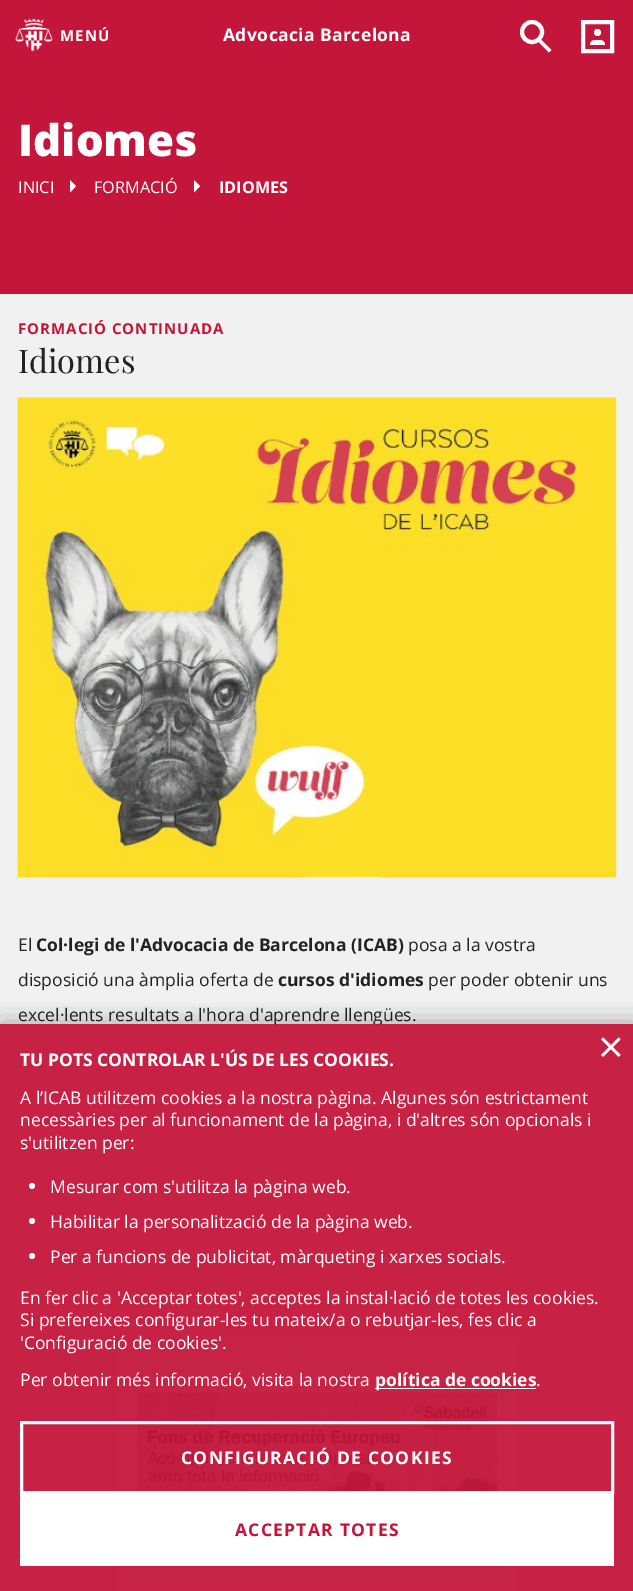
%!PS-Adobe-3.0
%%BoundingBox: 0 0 633 1591
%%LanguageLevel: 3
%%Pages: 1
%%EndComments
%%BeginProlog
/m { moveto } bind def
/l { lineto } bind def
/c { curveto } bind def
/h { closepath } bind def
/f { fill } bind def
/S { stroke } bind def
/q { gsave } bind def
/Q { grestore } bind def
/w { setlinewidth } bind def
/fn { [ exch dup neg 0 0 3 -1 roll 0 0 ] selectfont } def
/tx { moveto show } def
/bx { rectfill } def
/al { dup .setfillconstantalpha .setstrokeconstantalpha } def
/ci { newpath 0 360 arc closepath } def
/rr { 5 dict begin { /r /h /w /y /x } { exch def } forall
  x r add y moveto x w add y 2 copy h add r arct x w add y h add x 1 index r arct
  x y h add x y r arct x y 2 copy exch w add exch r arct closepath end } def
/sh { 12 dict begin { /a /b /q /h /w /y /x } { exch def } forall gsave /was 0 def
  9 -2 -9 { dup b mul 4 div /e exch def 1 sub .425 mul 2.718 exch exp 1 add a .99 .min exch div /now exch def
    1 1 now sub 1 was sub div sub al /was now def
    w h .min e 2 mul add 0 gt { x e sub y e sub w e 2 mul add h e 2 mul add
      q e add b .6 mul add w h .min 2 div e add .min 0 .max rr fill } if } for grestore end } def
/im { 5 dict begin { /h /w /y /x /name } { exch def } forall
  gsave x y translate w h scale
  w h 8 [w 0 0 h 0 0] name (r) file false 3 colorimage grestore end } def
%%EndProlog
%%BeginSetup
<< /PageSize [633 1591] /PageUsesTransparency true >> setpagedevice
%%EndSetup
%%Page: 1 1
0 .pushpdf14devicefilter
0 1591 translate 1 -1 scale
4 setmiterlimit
0.769 0.082 0.227 setrgbcolor
0 0 633 1591 bx
(image0.raw) 15 18 38 34 im
/OpenSans-Bold 15 fn
1 setgray
60 41 m 1 0 (MENÚ) ashow
/OpenSans-Bold 17.5 fn
223 41 m 0.4 0 (Advocacia Barcelona) ashow
4 w
532 32 10 ci S
540 38.5 m 551.5 50 l 549 52.5 l 537.5 41 l h f
583 22 29 29 rectstroke
597.5 32.5 3.5 ci f
595 40 m 600 40 l 603 40 605 42 605 45 c 590 45 l 590 42 592 40 595 40 c h f
/OpenSans-ExtraBold 43.75 fn
(Idiomes) 18 156 tx
/OpenSans-Regular 16.25 fn
(INICI) 18 193 tx
70 192.5 m 70 180 l 76 186 l h f
(FORMACIÓ) 94 193 tx
194 192.5 m 194 180 l 200 186 l h f
/OpenSans-Bold 16.25 fn
(IDIOMES) 219 193 tx
0.945 setgray
0 294 633 1297 bx
/OpenSans-Bold 15 fn
0.769 0.082 0.227 setrgbcolor
18 334 m 1 0 (FORMACIÓ CONTINUADA) ashow
/PlayfairDisplay-Regular 32.5 fn
0.133 setgray
(Idiomes) 18 373 tx
(image1.raw) 17 397 600 481 im
/OpenSans-Regular 17.5 fn
(El) 18 951 tx
/OpenSans-Bold 17.5 fn
(Col·legi de l'Advocacia de Barcelona \(ICAB\)) 36 951 tx
/OpenSans-Regular 17.5 fn
(posa a la vostra) 408 951 tx
(disposició una àmplia oferta de) 18 986 tx
/OpenSans-Bold 17.5 fn
(cursos d'idiomes) 278 986 tx
/OpenSans-Regular 17.5 fn
(per poder obtenir uns) 428 986 tx
(excel·lents resultats a l'hora d'aprendre llengües.) 18 1021 tx
1 setgray
118 1338 400 153 bx
(image2.raw) 137 1392 361 99 im
118 1566 400 25 bx
q
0 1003 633 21 rectclip
0 setgray
0 1023 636 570 0 13 0.3 sh
Q
0.94 al
0.769 0.082 0.227 setrgbcolor
0 1024 633 567 bx
/OpenSans-Regular 45 fn
1 al
1 setgray
(×) 598 1063 tx
/OpenSans-Bold 17.5 fn
(TU POTS CONTROLAR L'ÚS DE LES COOKIES.) 20 1066 tx
/OpenSans-Regular 17.5 fn
(A l’ICAB utilitzem cookies a la nostra pàgina. Algunes són estrictament) 20 1104 tx
(necessàries per al funcionament de la pàgina, i d'altres són opcionals i) 20 1126 tx
(s'utilitzen per:) 20 1149 tx
32 1186 3 ci f
(Mesurar com s'utilitza la pàgina web.) 50 1193 tx
32 1221 3 ci f
(Habilitar la personalització de la pàgina web.) 50 1228 tx
32 1256 3 ci f
(Per a funcions de publicitat, màrqueting i xarxes socials.) 50 1263 tx
(En fer clic a 'Acceptar totes', acceptes la instal·lació de totes les cookies.) 20 1304 tx
(Si prefereixes configurar-les tu mateix/a o rebutjar-les, fes clic a) 20 1326 tx
('Configuració de cookies'.) 20 1349 tx
(Per obtenir més informació, visita la nostra) 20 1386 tx
375 1388 161 1 bx
/OpenSans-Bold 17.5 fn
(política de cookies) 375 1386 tx
/OpenSans-Regular 17.5 fn
(.) 536 1386 tx
3 w
21.5 1422.5 591 70 rectstroke
/OpenSans-Bold 17.5 fn
181 1464 m 1.25 0 (CONFIGURACIÓ DE COOKIES) ashow
20 1494 594 72 bx
0.769 0.082 0.227 setrgbcolor
235 1536 m 1.25 0 (ACCEPTAR TOTES) ashow
.poppdf14devicefilter showpage
%%EOF
